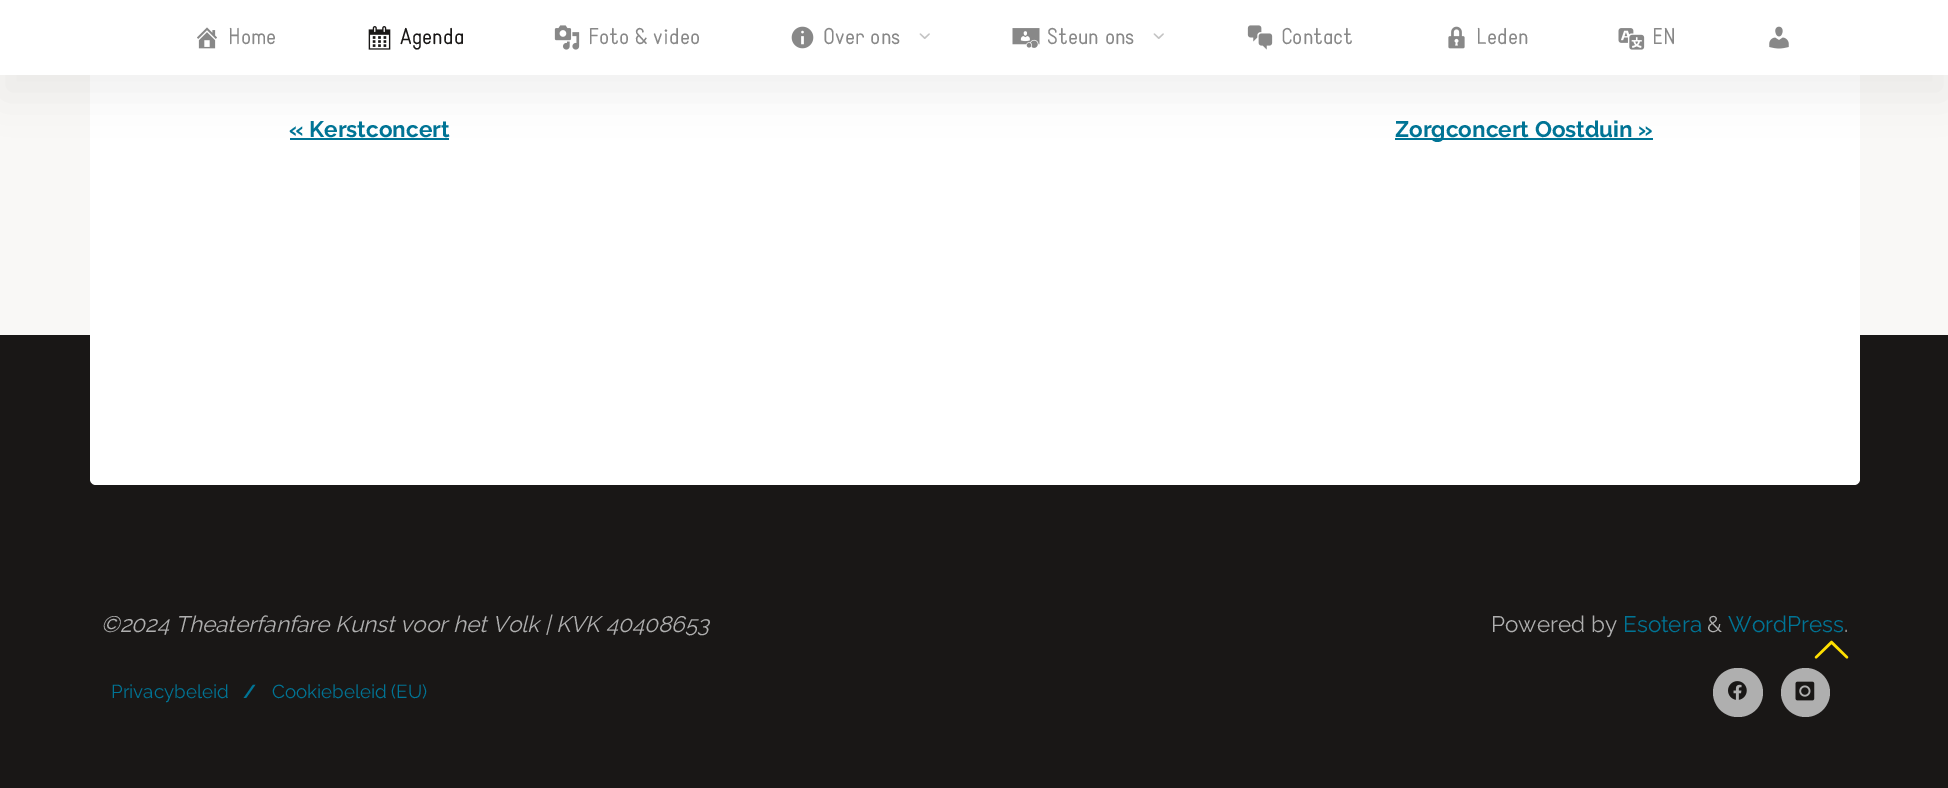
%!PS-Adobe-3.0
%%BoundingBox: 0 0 1948 788
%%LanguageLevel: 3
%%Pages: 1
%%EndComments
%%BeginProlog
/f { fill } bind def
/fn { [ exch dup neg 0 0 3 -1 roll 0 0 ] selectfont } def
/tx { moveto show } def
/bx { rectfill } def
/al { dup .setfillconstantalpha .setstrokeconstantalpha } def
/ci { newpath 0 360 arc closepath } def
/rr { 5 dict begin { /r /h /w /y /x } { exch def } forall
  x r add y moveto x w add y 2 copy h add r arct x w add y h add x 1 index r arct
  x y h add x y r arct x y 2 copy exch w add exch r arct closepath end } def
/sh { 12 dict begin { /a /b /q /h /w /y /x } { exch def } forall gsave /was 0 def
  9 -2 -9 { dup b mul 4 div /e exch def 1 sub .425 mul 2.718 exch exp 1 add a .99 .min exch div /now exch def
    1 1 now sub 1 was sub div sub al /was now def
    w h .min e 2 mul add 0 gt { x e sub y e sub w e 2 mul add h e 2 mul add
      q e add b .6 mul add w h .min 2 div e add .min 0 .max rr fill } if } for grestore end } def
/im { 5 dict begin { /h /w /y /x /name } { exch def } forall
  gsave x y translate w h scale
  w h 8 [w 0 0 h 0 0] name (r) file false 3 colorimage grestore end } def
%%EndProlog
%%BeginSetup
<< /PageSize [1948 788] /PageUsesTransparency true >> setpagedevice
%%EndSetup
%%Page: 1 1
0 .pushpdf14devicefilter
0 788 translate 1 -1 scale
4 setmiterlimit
0.976 0.973 0.965 setrgbcolor
0 0 1948 788 bx
0.098 0.09 0.086 setrgbcolor
0 335 1948 453 bx
1 setgray
90 -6 1770 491 6 rr f
0 0.455 0.584 setrgbcolor
290 138 159 2 bx
1395 138 258 2 bx
0 setgray
0 23 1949 75 0 22.5 0.05 sh
1 setgray
0 0 1948 75 bx
(image0.raw) 197 27 20 22 im
/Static-Regular 22.5 fn
0.533 setgray
(Home) 228 44 tx
(image1.raw) 368 26 23 24 im
0.098 0.09 0.086 setrgbcolor
(Agenda) 400 44 tx
(image2.raw) 554 25 26 25 im
0.533 setgray
(Foto & video) 588 44 tx
(image3.raw) 791 26 23 23 im
(Over ons) 823 44 tx
(image4.raw) 919 33 11 6 im
(image5.raw) 1012 28 28 20 im
(Steun ons) 1047 44 tx
(image4.raw) 1153 33 11 6 im
(image6.raw) 1247 25 26 25 im
(Contact) 1281 44 tx
(image7.raw) 1448 26 17 23 im
(Leden) 1476 44 tx
(image8.raw) 1618 28 27 22 im
(EN) 1652 44 tx
(image9.raw) 1769 26 20 23 im
/Raleway-Bold 22.5 fn
0 0.455 0.584 setrgbcolor
(« Kerstconcert) 289 137 tx
(Zorgconcert Oostduin ») 1395 137 tx
/Raleway-Italic 22.5 fn
0.686 setgray
(©2024 Theaterfanfare Kunst voor het Volk | KVK 40408653) 101 632 tx
/Raleway-Regular 22.5 fn
(Powered by) 1491 632 tx
0 0.455 0.584 setrgbcolor
(Esotera) 1623 632 tx
0.686 setgray
(&) 1707 632 tx
0 0.455 0.584 setrgbcolor
(WordPress) 1728 632 tx
0.686 setgray
(.) 1844 632 tx
(image10.raw) 1814 640 35 19 im
/Raleway-Regular 18.75 fn
0 0.455 0.584 setrgbcolor
(Privacybeleid) 111 698 tx
/Raleway-Bold 18.75 fn
(/) 243 698 tx
/Raleway-Regular 18.75 fn
(Cookiebeleid \(EU\)) 272 698 tx
0.686 setgray
1713 668 50 49 24.5 rr f
(image11.raw) 1728 681 19 19 im
1805.5 692.5 24.5 ci f
(image12.raw) 1795 681 20 20 im
.poppdf14devicefilter showpage
%%EOF
